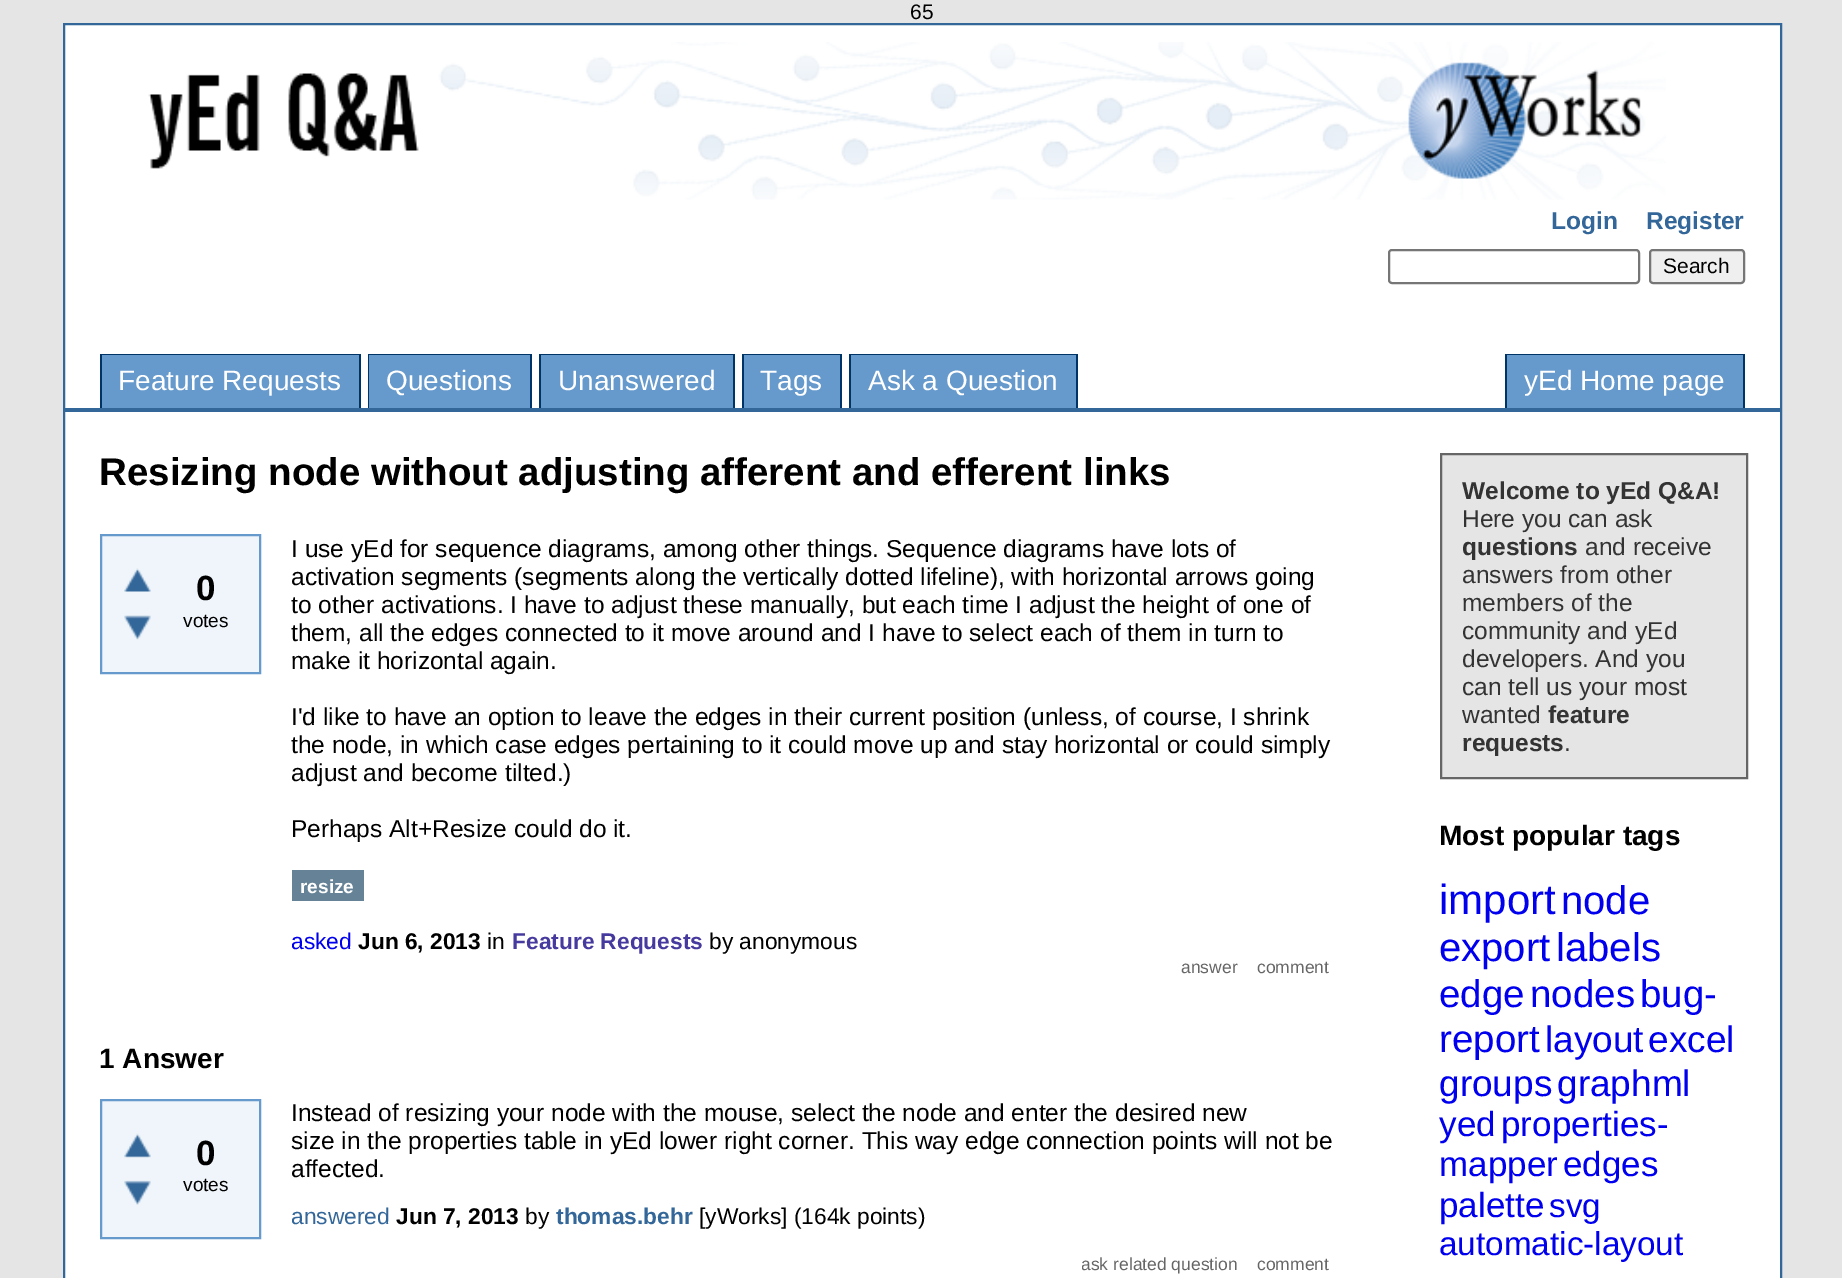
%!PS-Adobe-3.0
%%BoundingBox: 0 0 1842 1278
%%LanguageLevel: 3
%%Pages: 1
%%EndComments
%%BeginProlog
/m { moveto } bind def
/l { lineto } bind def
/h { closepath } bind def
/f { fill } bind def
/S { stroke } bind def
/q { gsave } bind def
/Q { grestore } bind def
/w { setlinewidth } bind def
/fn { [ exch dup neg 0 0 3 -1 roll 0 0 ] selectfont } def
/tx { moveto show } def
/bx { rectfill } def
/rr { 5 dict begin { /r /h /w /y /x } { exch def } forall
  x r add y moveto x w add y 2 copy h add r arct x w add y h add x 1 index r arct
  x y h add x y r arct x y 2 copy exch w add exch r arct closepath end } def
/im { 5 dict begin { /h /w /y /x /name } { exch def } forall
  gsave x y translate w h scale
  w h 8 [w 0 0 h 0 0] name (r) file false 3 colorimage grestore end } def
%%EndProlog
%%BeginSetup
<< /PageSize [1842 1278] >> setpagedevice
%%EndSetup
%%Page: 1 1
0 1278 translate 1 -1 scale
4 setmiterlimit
0.898 setgray
0 0 1842 1278 bx
/LiberationSans-Regular 21 fn
0 setgray
(65) 910 19 tx
1 setgray
64 24 m 1781 24 l 1781 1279 l 64 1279 l h q f Q
0.2 0.4 0.6 setrgbcolor
2 w
S
65 408 1715 4 bx
(image0.raw) 148 42 1518 158 im
/LiberationSans-Bold 24.5 fn
(Login) 1551 229 tx
(Register) 1646 229 tx
0.463 setgray
1389 250 250 33 3 rr S
0.937 setgray
1650 250 94 33 3 rr q f Q
0.463 setgray
S
/LiberationSans-Regular 21 fn
0 setgray
(Search) 1663 273 tx
0 0.2 0.4 setrgbcolor
100 354 261 1 bx
359 354 2 54 bx
100 354 2 54 bx
0.4 0.6 0.8 setrgbcolor
102 355 257 53 bx
/LiberationSans-Regular 28 fn
1 setgray
(Feature Requests) 118 390 tx
0 0.2 0.4 setrgbcolor
368 354 164 1 bx
530 354 2 54 bx
368 354 2 54 bx
0.4 0.6 0.8 setrgbcolor
369 355 161 53 bx
1 setgray
(Questions) 386 390 tx
0 0.2 0.4 setrgbcolor
539 354 196 1 bx
733 354 2 54 bx
539 354 2 54 bx
0.4 0.6 0.8 setrgbcolor
541 355 192 53 bx
1 setgray
(Unanswered) 558 390 tx
0 0.2 0.4 setrgbcolor
742 354 100 1 bx
840 354 2 54 bx
742 354 2 54 bx
0.4 0.6 0.8 setrgbcolor
744 355 96 53 bx
1 setgray
(Tags) 760 390 tx
0 0.2 0.4 setrgbcolor
849 354 229 1 bx
1076 354 2 54 bx
849 354 2 54 bx
0.4 0.6 0.8 setrgbcolor
851 355 225 53 bx
1 setgray
(Ask a Question) 868 390 tx
0 0.2 0.4 setrgbcolor
1505 354 240 1 bx
1743 354 2 54 bx
1505 354 2 54 bx
0.4 0.6 0.8 setrgbcolor
1507 355 236 53 bx
1 setgray
(yEd Home page) 1524 390 tx
/LiberationSans-Bold 38.5 fn
0 setgray
(Resizing node without adjusting afferent and efferent links) 99 485 tx
0.937 0.961 0.98 setrgbcolor
101 535 m 260 535 l 260 673 l 101 673 l h q f Q
0.4 0.6 0.8 setrgbcolor
S
(image1.raw) 124 568 27 24 im
(image2.raw) 124 615 27 25 im
/LiberationSans-Bold 35 fn
0 setgray
(0) 196 600 tx
/LiberationSans-Regular 19 fn
(votes) 183 627 tx
/LiberationSans-Regular 24.5 fn
(I use yEd for sequence diagrams, among other things. Sequence diagrams have lots of) 291 557 tx
(activation segments \(segments along the vertically dotted lifeline\), with horizontal arrows going) 291 585 tx
(to other activations. I have to adjust these manually, but each time I adjust the height of one of) 291 613 tx
(them, all the edges connected to it move around and I have to select each of them in turn to) 291 641 tx
(make it horizontal again.) 291 669 tx
(I'd like to have an option to leave the edges in their current position \(unless, of course, I shrink) 291 725 tx
(the node, in which case edges pertaining to it could move up and stay horizontal or could simply) 291 753 tx
(adjust and become tilted.\)) 291 781 tx
(Perhaps Alt+Resize could do it.) 291 837 tx
0.396 0.51 0.588 setrgbcolor
292 870 72 31 bx
/LiberationSans-Bold 19 fn
1 setgray
(resize) 300 893 tx
/LiberationSans-Regular 22.75 fn
0 0 0.933 setrgbcolor
(asked) 291 949 tx
/LiberationSans-Bold 22.75 fn
0 setgray
(Jun 6, 2013) 358 949 tx
/LiberationSans-Regular 22.75 fn
(in) 487 949 tx
/LiberationSans-Bold 22.75 fn
0.278 0.227 0.624 setrgbcolor
(Feature Requests) 512 949 tx
/LiberationSans-Regular 22.75 fn
0 setgray
(by anonymous) 709 949 tx
/LiberationSans-Regular 17.5 fn
0.4 setgray
(answer) 1181 973 tx
(comment) 1257 973 tx
/LiberationSans-Bold 28 fn
0 setgray
(1 Answer) 99 1068 tx
0.937 0.961 0.98 setrgbcolor
101 1100 m 260 1100 l 260 1238 l 101 1238 l h q f Q
0.4 0.6 0.8 setrgbcolor
S
(image3.raw) 124 1133 27 25 im
(image4.raw) 124 1180 27 25 im
/LiberationSans-Bold 35 fn
0 setgray
(0) 196 1165 tx
/LiberationSans-Regular 19 fn
(votes) 183 1191 tx
/LiberationSans-Regular 24.5 fn
(Instead of resizing your node with the mouse, select the node and enter the desired new) 291 1121 tx
(size in the properties table in yEd lower right corner. This way edge connection points will not be) 291 1149 tx
(affected.) 291 1177 tx
/LiberationSans-Regular 22.75 fn
0.2 0.4 0.6 setrgbcolor
(answered) 291 1224 tx
/LiberationSans-Bold 22.75 fn
0 setgray
(Jun 7, 2013) 396 1224 tx
/LiberationSans-Regular 22.75 fn
(by) 525 1224 tx
/LiberationSans-Bold 22.75 fn
0.2 0.4 0.6 setrgbcolor
(thomas.behr) 556 1224 tx
/LiberationSans-Regular 22.75 fn
0 setgray
([yWorks] \(164k points\)) 699 1224 tx
q
1082 1255 155 19 rectclip
/LiberationSans-Regular 17.5 fn
0.4 setgray
(ask related question) 1081 1270 tx
Q
/LiberationSans-Regular 17.5 fn
0.4 setgray
(comment) 1257 1270 tx
0.898 setgray
1441 454 m 1747 454 l 1747 778 l 1441 778 l h q f Q
0.4 setgray
S
/LiberationSans-Bold 24.5 fn
0.2 setgray
(Welcome to yEd Q&A!) 1462 499 tx
/LiberationSans-Regular 24.5 fn
(Here you can ask) 1462 527 tx
/LiberationSans-Bold 24.5 fn
(questions) 1462 555 tx
/LiberationSans-Regular 24.5 fn
(and receive) 1585 555 tx
(answers from other) 1462 583 tx
(members of the) 1462 611 tx
(community and yEd) 1462 639 tx
(developers. And you) 1462 667 tx
(can tell us your most) 1462 695 tx
(wanted) 1462 723 tx
/LiberationSans-Bold 24.5 fn
(feature) 1548 723 tx
(requests) 1462 751 tx
/LiberationSans-Regular 24.5 fn
(.) 1564 751 tx
/LiberationSans-Bold 28 fn
0 setgray
(Most popular tags) 1439 845 tx
/LiberationSans-Regular 42 fn
0 0 0.933 setrgbcolor
(import) 1439 914 tx
/LiberationSans-Regular 40 fn
(node) 1561 914 tx
(export) 1439 961 tx
(labels) 1556 961 tx
/LiberationSans-Regular 38.5 fn
(edge) 1439 1007 tx
(nodes) 1530 1007 tx
(bug-) 1640 1007 tx
(report) 1439 1052 tx
/LiberationSans-Regular 37 fn
(layout) 1545 1052 tx
(excel) 1648 1052 tx
(groups) 1439 1096 tx
(graphml) 1557 1096 tx
/LiberationSans-Regular 35 fn
(yed) 1439 1136 tx
(properties-) 1501 1136 tx
(mapper) 1439 1176 tx
(edges) 1563 1176 tx
(palette) 1439 1217 tx
/LiberationSans-Regular 33.25 fn
(svg) 1549 1217 tx
(automatic-layout) 1439 1255 tx
showpage
%%EOF
